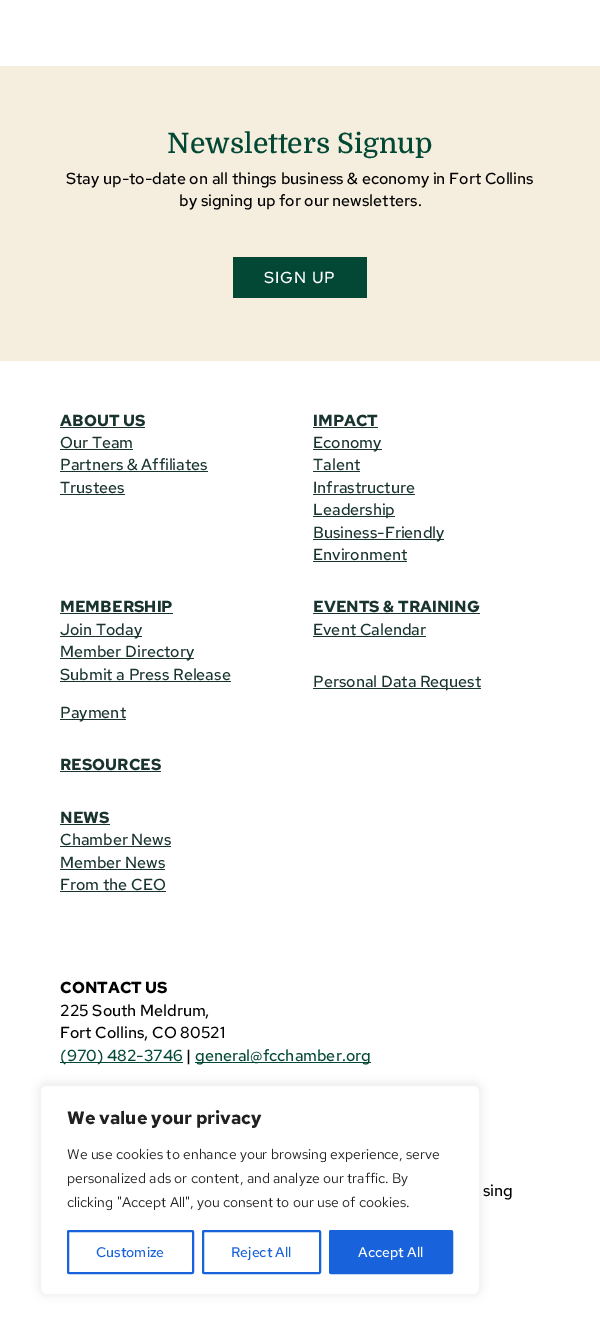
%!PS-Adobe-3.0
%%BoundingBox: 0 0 600 1335
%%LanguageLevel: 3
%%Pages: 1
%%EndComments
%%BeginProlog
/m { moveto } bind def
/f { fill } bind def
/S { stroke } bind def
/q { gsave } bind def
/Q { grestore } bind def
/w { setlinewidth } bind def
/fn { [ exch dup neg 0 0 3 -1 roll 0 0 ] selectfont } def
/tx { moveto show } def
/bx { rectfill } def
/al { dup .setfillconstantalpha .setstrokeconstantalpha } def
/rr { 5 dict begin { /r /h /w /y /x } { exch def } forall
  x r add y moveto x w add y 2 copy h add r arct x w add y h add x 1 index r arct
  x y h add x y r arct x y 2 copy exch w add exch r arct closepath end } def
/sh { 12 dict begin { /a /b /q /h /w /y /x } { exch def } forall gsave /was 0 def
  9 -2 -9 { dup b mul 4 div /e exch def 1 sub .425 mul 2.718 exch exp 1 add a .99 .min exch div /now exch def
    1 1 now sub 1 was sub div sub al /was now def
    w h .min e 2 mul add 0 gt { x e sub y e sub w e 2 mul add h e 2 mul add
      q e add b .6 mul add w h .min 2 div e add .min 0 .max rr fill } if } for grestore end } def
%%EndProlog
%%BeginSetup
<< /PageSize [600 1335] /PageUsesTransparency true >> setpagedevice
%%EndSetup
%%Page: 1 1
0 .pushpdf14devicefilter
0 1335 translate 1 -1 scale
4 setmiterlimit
1 setgray
0 0 600 1335 bx
0.961 0.929 0.871 setrgbcolor
0 66 600 295 bx
/Domine-Medium 28 fn
0.012 0.282 0.208 setrgbcolor
(Newsletters Signup) 167 153 tx
/RedHatText-Medium 16 fn
0 setgray
(Stay up-to-date on all things business & economy in Fort Collins) 66 184 tx
(by signing up for our newsletters.) 179 206 tx
0.012 0.282 0.208 setrgbcolor
233 257 134 41 bx
1 setgray
264 283 m 1 0 (SIGN UP) ashow
/RedHatText-Bold 16 fn
0.098 0.2 0.184 setrgbcolor
(ABOUT US) 60 426 tx
60 427 85 1 bx
/RedHatText-Medium 16 fn
(Our Team) 60 448 tx
60 449 73 1 bx
(Partners & Affiliates) 60 470 tx
60 471 148 1 bx
(Trustees) 60 493 tx
60 494 65 1 bx
/RedHatText-Bold 16 fn
(IMPACT) 313 426 tx
313 427 65 1 bx
313 449 69 1 bx
/RedHatText-Medium 16 fn
(Economy) 313 448 tx
(Talent) 313 470 tx
313 471 47 1 bx
(Infrastructure) 313 493 tx
313 494 102 1 bx
313 516 82 1 bx
(Leadership) 313 515 tx
313 539 131 1 bx
(Business-Friendly) 313 538 tx
(Environment) 313 560 tx
313 561 94 1 bx
/RedHatText-Bold 16 fn
(MEMBERSHIP) 60 612 tx
60 613 113 1 bx
60 636 82 1 bx
/RedHatText-Medium 16 fn
(Join Today) 60 635 tx
60 658 134 1 bx
(Member Directory) 60 657 tx
(Submit a Press Release) 60 680 tx
60 681 171 1 bx
60 719 66 1 bx
(Payment) 60 718 tx
/RedHatText-Bold 16 fn
(EVENTS & TRAINING) 313 612 tx
313 613 167 1 bx
/RedHatText-Medium 16 fn
(Event Calendar) 313 635 tx
313 636 113 1 bx
313 688 168 1 bx
(Personal Data Request) 313 687 tx
/RedHatText-Bold 16 fn
(RESOURCES) 60 770 tx
60 771 101 1 bx
(NEWS) 60 823 tx
60 824 50 1 bx
/RedHatText-Medium 16 fn
(Chamber News) 60 845 tx
60 846 111 1 bx
(Member News) 60 868 tx
60 869 105 1 bx
(From the CEO) 60 890 tx
60 891 106 1 bx
/RedHatText-Bold 16 fn
0 setgray
(CONTACT US) 60 993 tx
/RedHatText-Medium 16 fn
(225 South Meldrum,) 60 1016 tx
(Fort Collins, CO 80521) 60 1038 tx
0.012 0.282 0.208 setrgbcolor
60 1062 123 1 bx
(\(970\) 482-3746) 60 1061 tx
0 setgray
(|) 186 1061 tx
0.012 0.282 0.208 setrgbcolor
195 1062 176 1 bx
(general@fcchamber.org) 195 1061 tx
0 setgray
(sing) 483 1196 tx
0.675 0.671 0.671 setrgbcolor
40 1084 440 210 6 5 0.3 sh
1 setgray
40.5 1085.5 439 209 5.5 rr q f Q
0.957 setgray
S
/RedHatText-Bold 18 fn
0.129 setgray
(We value your privacy) 67 1124 tx
/RedHatText-Regular 14 fn
(We use cookies to enhance your browsing experience, serve) 67 1159 tx
(personalized ads or content, and analyze our traffic. By) 67 1183 tx
(clicking "Accept All", you consent to our use of cookies.) 67 1207 tx
0.094 0.388 0.863 setrgbcolor
2 w
68 1231 125 42 1 rr S
/RedHatText-Medium 14 fn
(Customize) 96 1257 tx
203 1231 117 42 1 rr S
(Reject All) 231 1257 tx
330 1231 122 42 1 rr q f Q
S
1 setgray
(Accept All) 358 1257 tx
.poppdf14devicefilter showpage
%%EOF
